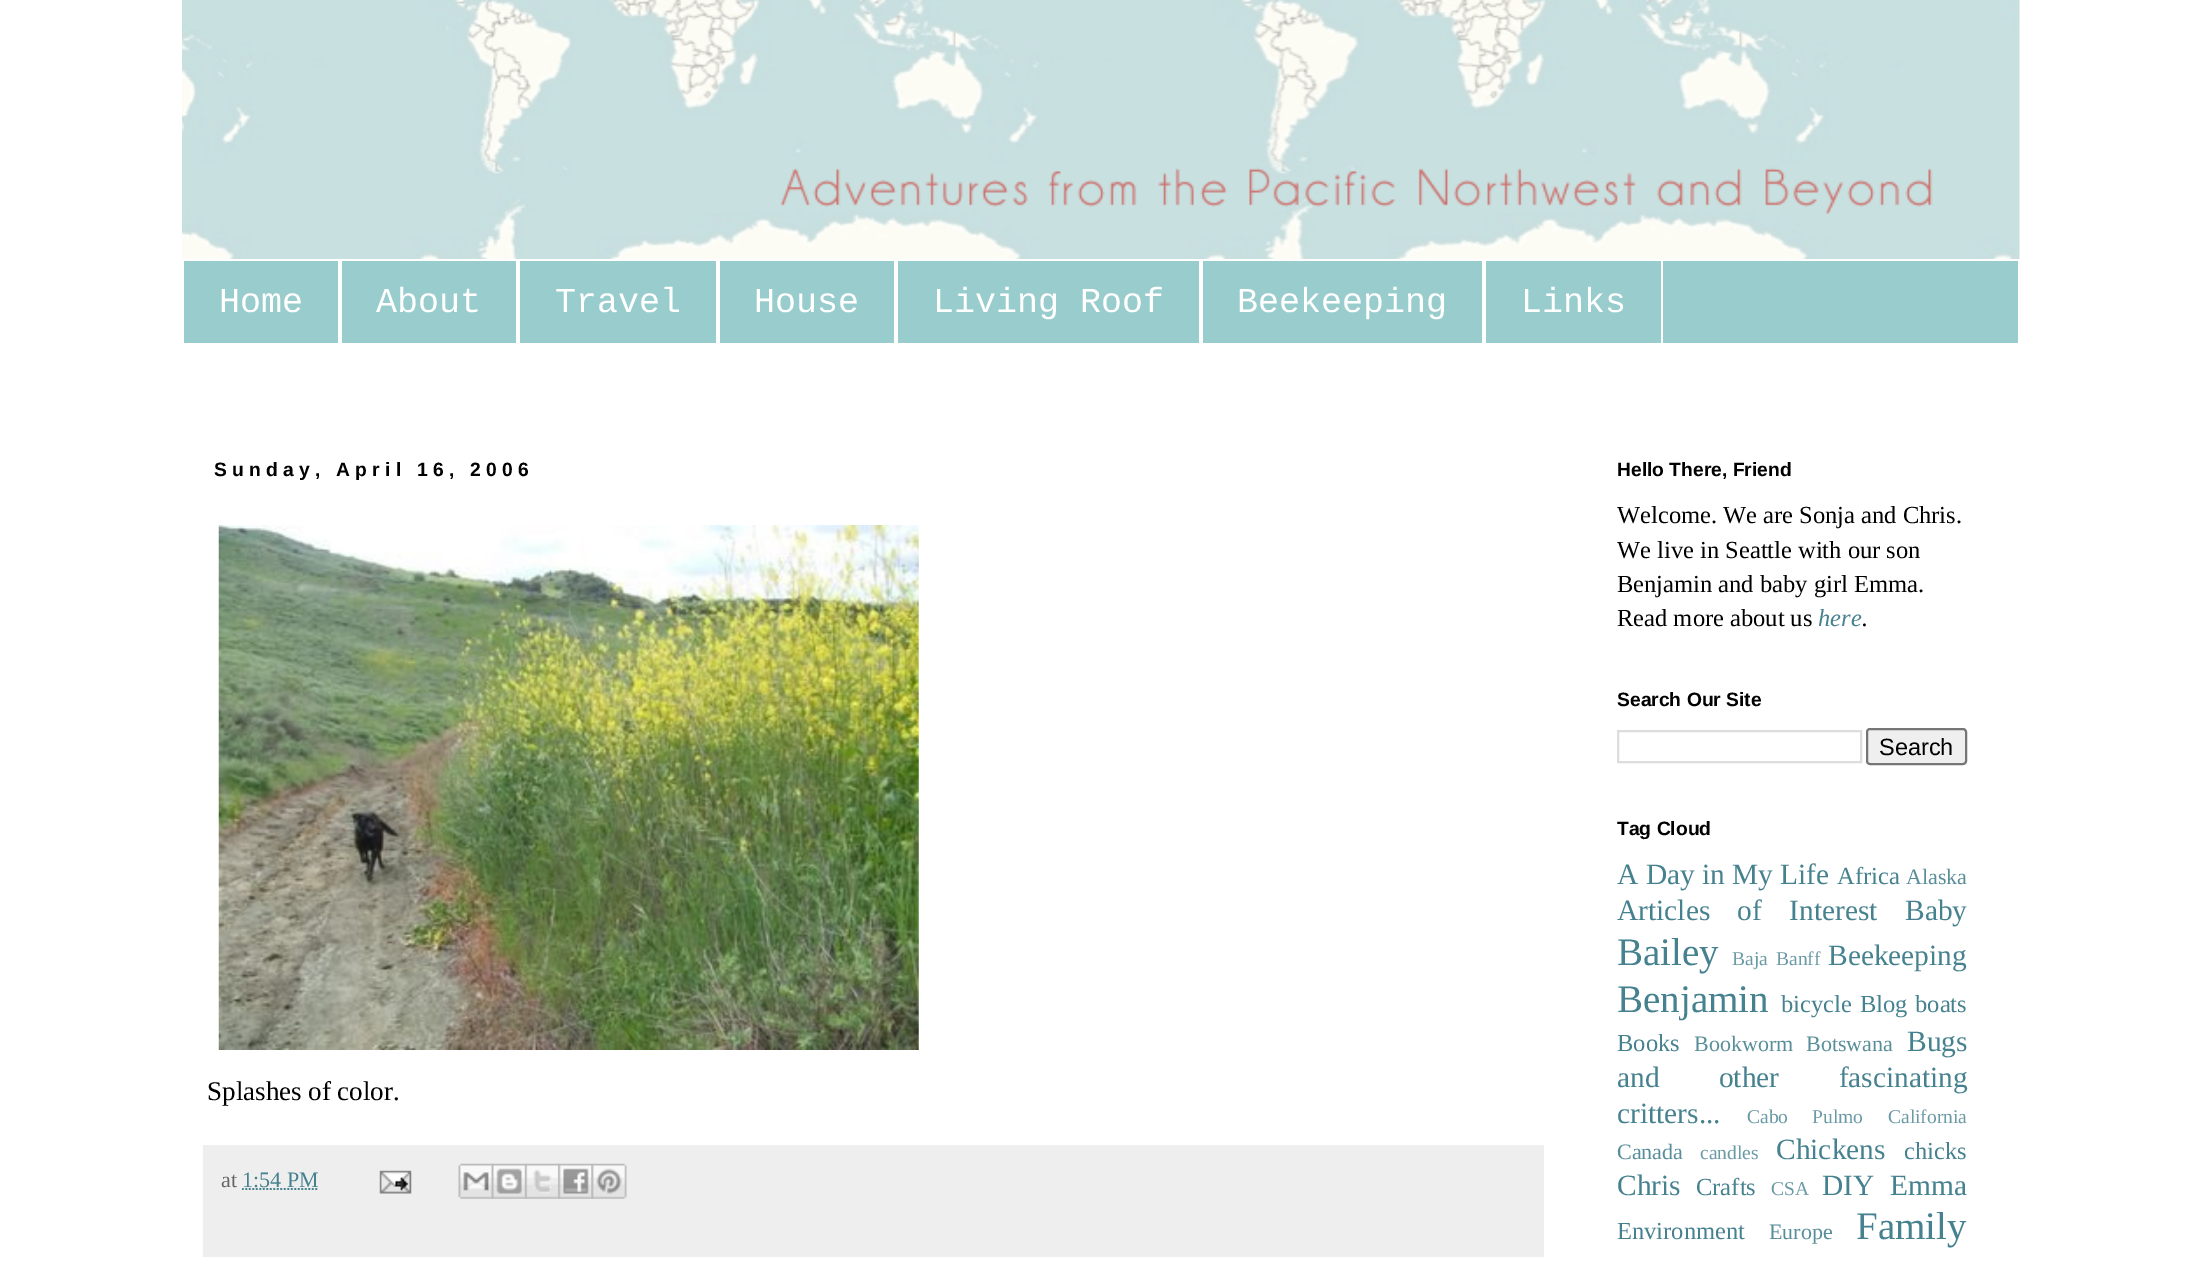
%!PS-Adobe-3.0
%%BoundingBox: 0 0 2200 1271
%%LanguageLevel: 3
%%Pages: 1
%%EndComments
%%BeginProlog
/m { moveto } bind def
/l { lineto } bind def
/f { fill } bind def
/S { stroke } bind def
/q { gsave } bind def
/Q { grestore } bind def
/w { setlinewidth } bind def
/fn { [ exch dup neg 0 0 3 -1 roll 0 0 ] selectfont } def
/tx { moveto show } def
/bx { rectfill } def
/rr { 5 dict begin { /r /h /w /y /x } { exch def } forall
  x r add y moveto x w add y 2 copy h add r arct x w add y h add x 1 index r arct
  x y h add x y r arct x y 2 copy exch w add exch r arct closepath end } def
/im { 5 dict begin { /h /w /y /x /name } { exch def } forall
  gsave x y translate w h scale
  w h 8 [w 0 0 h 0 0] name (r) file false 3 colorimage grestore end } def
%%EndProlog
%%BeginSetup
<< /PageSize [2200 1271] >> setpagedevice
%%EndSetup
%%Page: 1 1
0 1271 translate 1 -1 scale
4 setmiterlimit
1 setgray
0 0 2200 1271 bx
(image0.raw) 182 0 1838 259 im
0.6 0.8 0.8 setrgbcolor
184 261 1834 82 bx
1 setgray
338 261 4 82 bx
/LiberationMono-Regular 35 fn
(Home) 219 312 tx
516 261 4 82 bx
(About) 376 312 tx
716 261 4 82 bx
(Travel) 555 312 tx
894 261 4 82 bx
(House) 754 312 tx
1199 261 4 82 bx
(Living Roof) 933 312 tx
1482 261 4 82 bx
(Beekeeping) 1237 312 tx
1661 261 2 82 bx
(Links) 1521 312 tx
/LiberationSans-Bold 19.25 fn
0 setgray
214 476 m 5.25 0 (Sunday, April 16, 2006) ashow
(image1.raw) 218 525 701 525 im
/LiberationSerif-Regular 27 fn
(Splashes of color.) 207 1100 tx
0.933 setgray
203 1145 1341 112 bx
/LiberationSerif-Regular 22 fn
0.4 setgray
(at) 221 1187 tx
0.271 0.506 0.557 setrgbcolor
(1:54 PM) 242 1187 tx
1.8 w
[1.75 1.75] 0 setdash
242 1189 m 318.5 1189 l S
(image2.raw) 379 1170 33 24 im
(image3.raw) 458 1163 36 36 im
(image4.raw) 491 1163 36 36 im
(image5.raw) 525 1163 35 36 im
(image6.raw) 558 1163 36 36 im
(image7.raw) 591 1163 36 36 im
/LiberationSans-Bold 19.25 fn
0 setgray
(Hello There, Friend) 1617 476 tx
/LiberationSerif-Regular 24.5 fn
(Welcome. We are Sonja and Chris.) 1617 523 tx
(We live in Seattle with our son) 1617 558 tx
(Benjamin and baby girl Emma.) 1617 592 tx
(Read more about us) 1617 626 tx
/LiberationSerif-Italic 24.5 fn
0.271 0.506 0.557 setrgbcolor
(here) 1818 626 tx
0 setgray
(.) 1862 626 tx
/LiberationSans-Bold 19.25 fn
(Search Our Site) 1617 706 tx
0.867 setgray
2 w
[] 0 setdash
1618 731 243 31 rectstroke
0.937 setgray
1867 729 99 35 3 rr q f Q
0.463 setgray
S
/LiberationSans-Regular 23.5 fn
0 setgray
(Search) 1879 755 tx
/LiberationSans-Bold 19.25 fn
(Tag Cloud) 1617 835 tx
/LiberationSerif-Regular 29.4 fn
0.271 0.506 0.557 setrgbcolor
(A Day in My Life) 1617 884 tx
/LiberationSerif-Regular 24.5 fn
(Africa) 1837 884 tx
/LiberationSerif-Regular 22 fn
0.345 0.557 0.6 setrgbcolor
(Alaska) 1906 884 tx
/LiberationSerif-Regular 29.4 fn
0.271 0.506 0.557 setrgbcolor
1617 920 m 20 0 32 (Articles of Interest) widthshow
(Baby) 1905 920 tx
/LiberationSerif-Regular 39 fn
(Bailey) 1617 965 tx
/LiberationSerif-Regular 19.5 fn
0.416 0.604 0.647 setrgbcolor
(Baja) 1732 965 tx
(Banff) 1776 965 tx
/LiberationSerif-Regular 29.4 fn
0.271 0.506 0.557 setrgbcolor
(Beekeeping) 1828 965 tx
/LiberationSerif-Regular 39 fn
(Benjamin) 1617 1012 tx
/LiberationSerif-Regular 24.5 fn
(bicycle) 1781 1012 tx
(Blog) 1860 1012 tx
(boats) 1915 1012 tx
(Books) 1617 1051 tx
/LiberationSerif-Regular 22 fn
0.345 0.557 0.6 setrgbcolor
(Bookworm) 1694 1051 tx
(Botswana) 1806 1051 tx
/LiberationSerif-Regular 29.4 fn
0.271 0.506 0.557 setrgbcolor
(Bugs) 1907 1051 tx
1617 1087 m 52 0 32 (and other fascinating) widthshow
(critters...) 1617 1123 tx
/LiberationSerif-Regular 19.5 fn
0.416 0.604 0.647 setrgbcolor
1747 1123 m 19 0 32 (Cabo Pulmo) widthshow
(California) 1888 1123 tx
/LiberationSerif-Regular 22 fn
0.345 0.557 0.6 setrgbcolor
(Canada) 1617 1159 tx
/LiberationSerif-Regular 19.5 fn
0.416 0.604 0.647 setrgbcolor
(candles) 1700 1159 tx
/LiberationSerif-Regular 29.4 fn
0.271 0.506 0.557 setrgbcolor
(Chickens) 1776 1159 tx
/LiberationSerif-Regular 24.5 fn
(chicks) 1904 1159 tx
/LiberationSerif-Regular 29.4 fn
(Chris) 1617 1195 tx
/LiberationSerif-Regular 24.5 fn
(Crafts) 1696 1195 tx
/LiberationSerif-Regular 19.5 fn
0.416 0.604 0.647 setrgbcolor
(CSA) 1771 1195 tx
/LiberationSerif-Regular 29.4 fn
0.271 0.506 0.557 setrgbcolor
(DIY) 1822 1195 tx
(Emma) 1890 1195 tx
/LiberationSerif-Regular 24.5 fn
(Environment) 1617 1239 tx
/LiberationSerif-Regular 22 fn
0.345 0.557 0.6 setrgbcolor
(Europe) 1769 1239 tx
/LiberationSerif-Regular 39 fn
0.271 0.506 0.557 setrgbcolor
(Family) 1856 1239 tx
showpage
%%EOF
